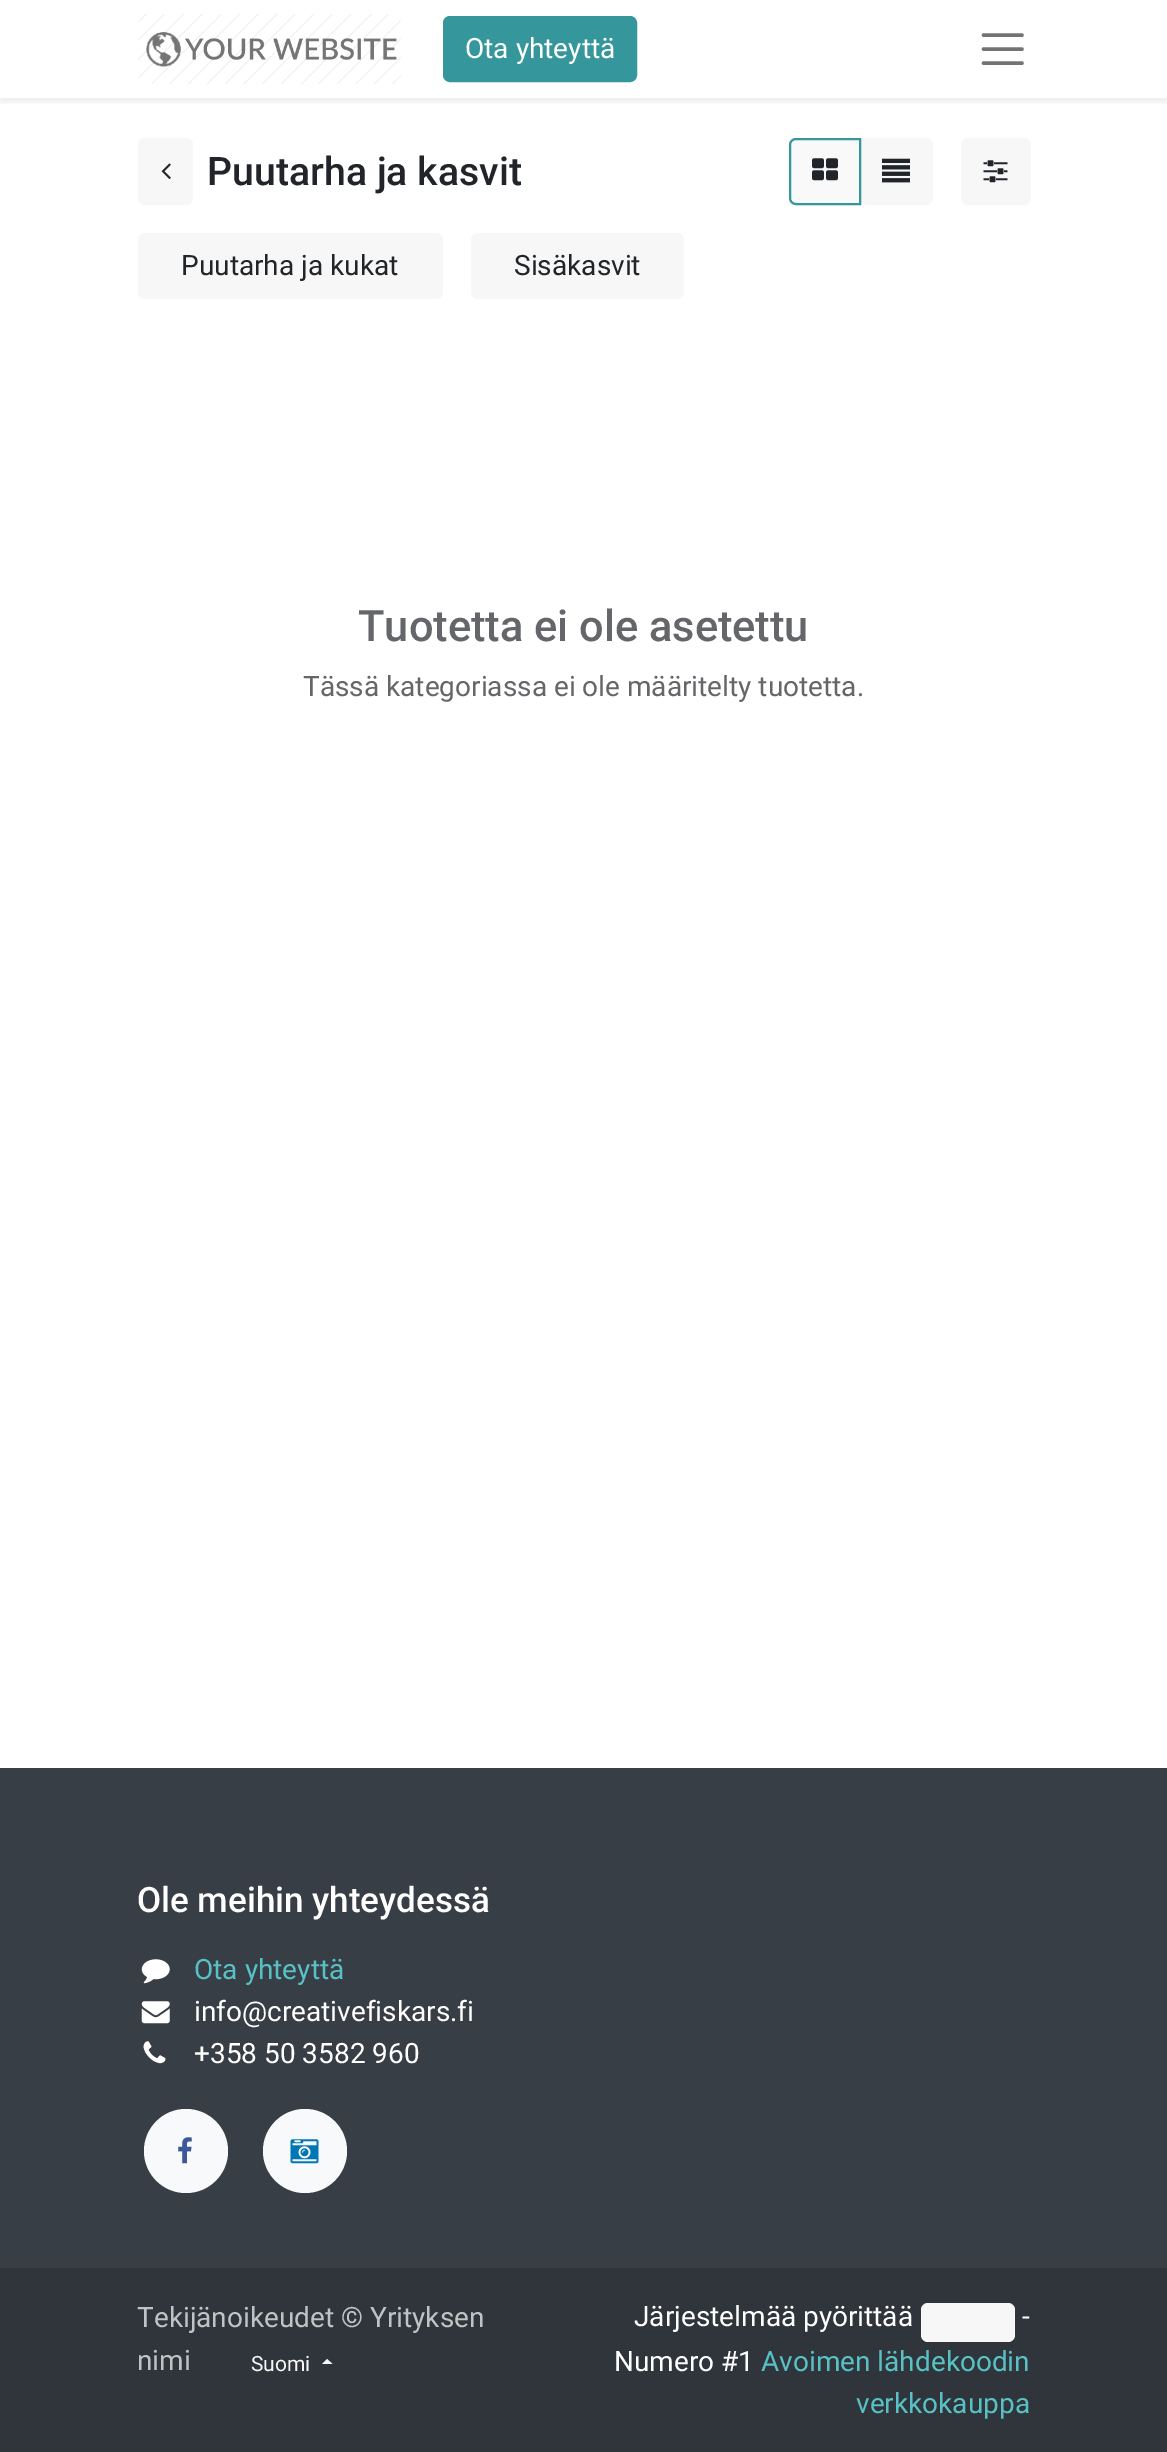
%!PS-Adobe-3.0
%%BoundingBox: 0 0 1167 2452
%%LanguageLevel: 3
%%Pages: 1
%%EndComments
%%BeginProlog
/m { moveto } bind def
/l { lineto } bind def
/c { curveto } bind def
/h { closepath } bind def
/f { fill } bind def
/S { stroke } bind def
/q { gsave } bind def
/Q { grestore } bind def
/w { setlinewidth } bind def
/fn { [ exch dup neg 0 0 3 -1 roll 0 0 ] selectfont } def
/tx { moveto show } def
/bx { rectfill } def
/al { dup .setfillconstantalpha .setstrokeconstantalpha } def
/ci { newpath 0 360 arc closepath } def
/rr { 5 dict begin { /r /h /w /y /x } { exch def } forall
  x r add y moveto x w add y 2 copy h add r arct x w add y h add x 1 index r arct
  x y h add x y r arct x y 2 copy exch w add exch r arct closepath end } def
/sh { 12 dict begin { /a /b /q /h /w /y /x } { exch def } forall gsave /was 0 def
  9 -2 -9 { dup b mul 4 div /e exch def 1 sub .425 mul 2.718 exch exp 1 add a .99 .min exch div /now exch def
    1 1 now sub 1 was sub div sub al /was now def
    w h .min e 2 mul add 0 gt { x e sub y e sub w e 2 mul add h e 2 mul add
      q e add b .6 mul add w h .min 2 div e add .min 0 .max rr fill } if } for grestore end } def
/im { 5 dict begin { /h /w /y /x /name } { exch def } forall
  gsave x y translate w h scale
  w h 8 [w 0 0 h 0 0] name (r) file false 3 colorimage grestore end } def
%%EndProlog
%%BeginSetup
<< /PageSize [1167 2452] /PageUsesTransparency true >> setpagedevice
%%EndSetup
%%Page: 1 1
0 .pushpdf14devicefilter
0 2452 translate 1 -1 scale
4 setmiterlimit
1 setgray
0 0 1167 2452 bx
q
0 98 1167 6 rectclip
0 setgray
0 4 1167 98 0 3.5 0.07 sh
Q
(image0.raw) 138 14 263 70 im
0.208 0.592 0.612 setrgbcolor
444 17 192 64 6 rr q f Q
2 w
S
/Roboto-Regular 28 fn
1 setgray
(Ota yhteyttä) 465 58 tx
0.451 setgray
3.5 w
1 setlinecap
983.5 35 m 1022 35 l 983.5 49 m 1022 49 l 983.5 63 m 1022 63 l S
0.969 setgray
138 138 55 67 7 rr f
(image1.raw) 161 163 10 16 im
/Roboto-Medium 39.25 fn
0.129 0.145 0.161 setrgbcolor
(Puutarha ja kasvit) 207 185 tx
0.969 setgray
859 138 m 926 138 l 930 138 933 141 933 145 c 933 198 l 933 202 930 205 926 205 c 859 205 l h f
0.976 setgray
796 139 m 860 139 l 860 204 l 796 204 l 792.5 204 790 201.5 790 198 c 790 145 l 790 141.5 792.5 139 796 139 c h q f Q
0.208 0.592 0.612 setrgbcolor
2 w
0 setlinecap
S
(image2.raw) 812 158 26 23 im
(image3.raw) 882 158 28 25 im
0.969 setgray
961 138 70 67 7 rr f
(image4.raw) 983 160 25 23 im
138 233 305 66 7 rr f
/Roboto-Regular 28 fn
0.129 0.145 0.161 setrgbcolor
(Puutarha ja kukat) 181 275 tx
0.969 setgray
471 233 213 66 7 rr f
0.129 0.145 0.161 setrgbcolor
(Sisäkasvit) 514 275 tx
/Roboto-Medium 43.4 fn
0.392 0.4 0.412 setrgbcolor
(Tuotetta ei ole asetettu) 358 641 tx
/Roboto-Regular 28 fn
(Tässä kategoriassa ei ole määritelty tuotetta.) 303 696 tx
0.22 0.243 0.271 setrgbcolor
0 1768 1167 500 bx
/Roboto-Medium 35 fn
1 setgray
(Ole meihin yhteydessä) 137 1912 tx
(image5.raw) 141 1959 29 25 im
/Roboto-Regular 28 fn
0.341 0.757 0.776 setrgbcolor
(Ota yhteyttä) 194 1979 tx
(image6.raw) 141 2001 29 23 im
1 setgray
(info@creativefiskars.fi) 194 2021 tx
(image7.raw) 143 2041 23 23 im
(+358 50 3582 960) 194 2063 tx
0.973 0.976 0.98 setrgbcolor
186 2151 42 ci f
(image8.raw) 178 2137 14 27 im
305 2151 42 ci f
(image9.raw) 290 2139 29 25 im
0.188 0.208 0.231 setrgbcolor
0 2268 1167 184 bx
0.757 0.761 0.769 setrgbcolor
(Tekijänoikeudet © Yrityksen) 137 2327 tx
(nimi) 137 2370 tx
/Roboto-Regular 21 fn
0.965 setgray
(Suomi) 251 2371 tx
332.5 2364 m 322 2364 l 327 2359 l h f
/Roboto-Regular 28 fn
1 setgray
(Järjestelmää pyörittää) 634 2326 tx
0.969 setgray
921 2303 94 39 7 rr f
1 setgray
(-) 1022 2326 tx
(Numero #1) 614 2371 tx
0.341 0.757 0.776 setrgbcolor
(Avoimen lähdekoodin) 761 2371 tx
(verkkokauppa) 856 2413 tx
.poppdf14devicefilter showpage
%%EOF
